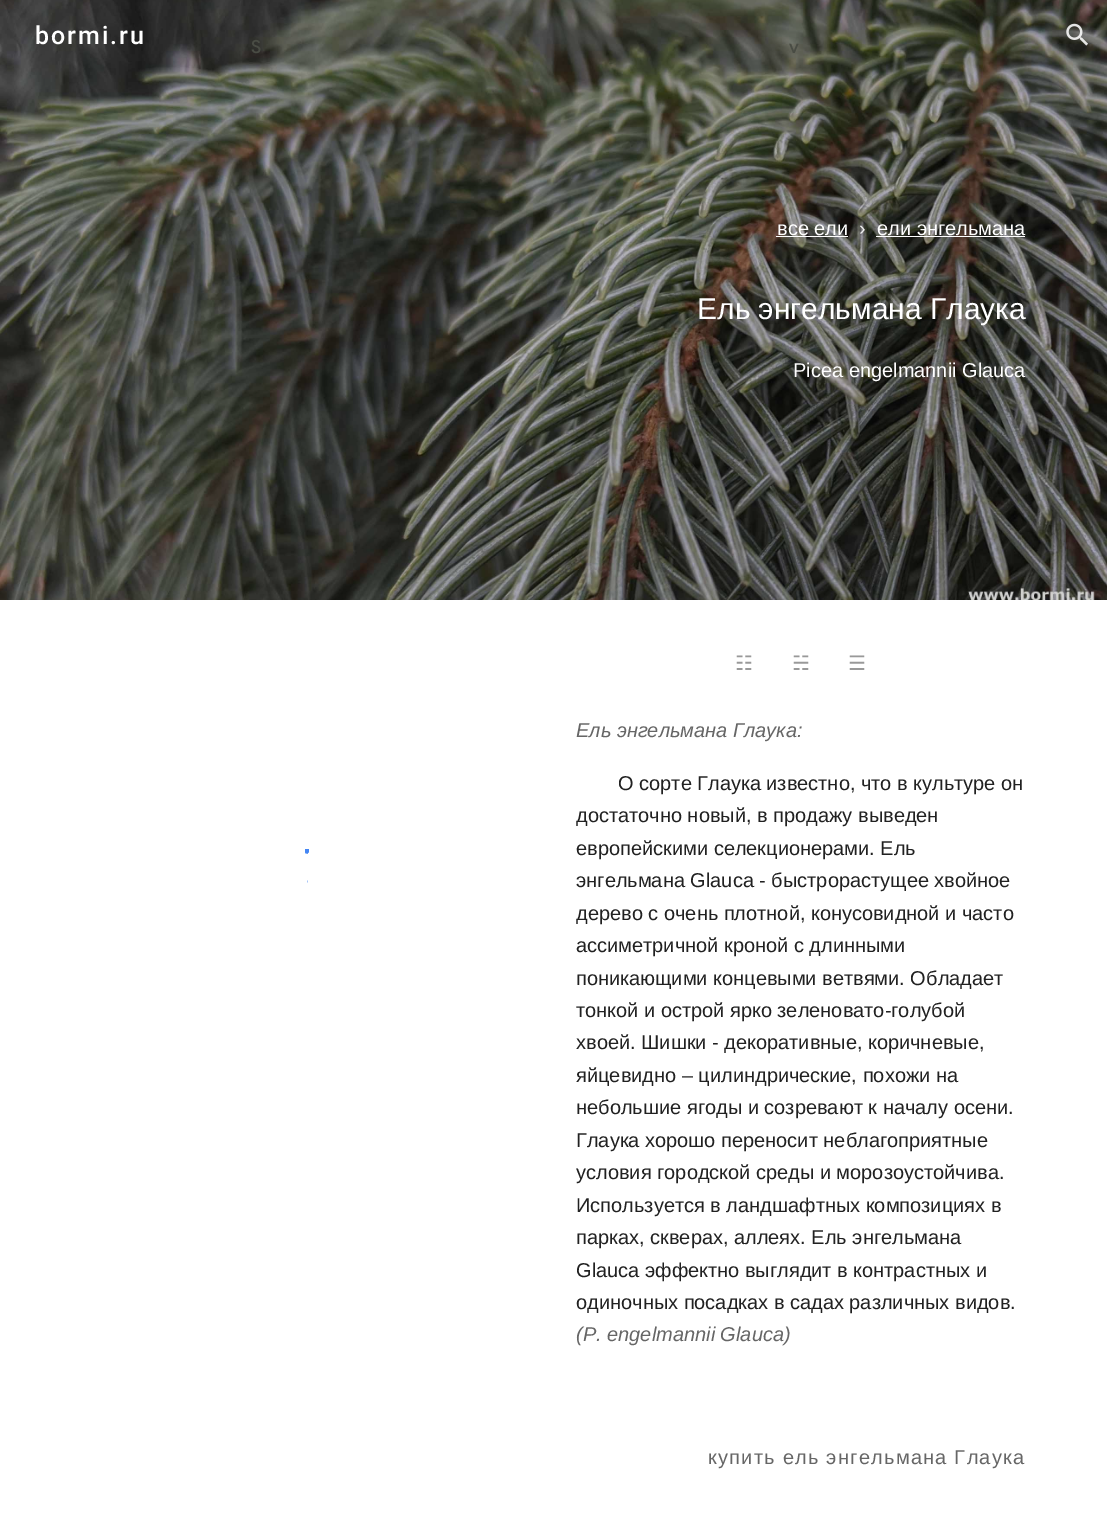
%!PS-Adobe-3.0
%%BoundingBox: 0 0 1107 1517
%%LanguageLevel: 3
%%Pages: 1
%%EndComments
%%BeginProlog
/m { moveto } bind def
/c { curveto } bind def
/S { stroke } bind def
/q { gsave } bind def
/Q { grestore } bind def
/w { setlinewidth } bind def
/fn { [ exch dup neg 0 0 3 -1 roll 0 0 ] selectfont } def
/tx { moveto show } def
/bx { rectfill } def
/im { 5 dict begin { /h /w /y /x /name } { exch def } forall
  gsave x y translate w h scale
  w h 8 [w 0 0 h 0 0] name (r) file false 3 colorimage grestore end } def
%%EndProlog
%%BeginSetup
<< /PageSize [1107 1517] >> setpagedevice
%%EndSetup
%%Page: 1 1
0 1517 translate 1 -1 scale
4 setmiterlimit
1 setgray
0 0 1107 1517 bx
(image1.raw) 0 0 1107 600 im
/Roboto-Medium 25 fn
35 44 m 2 0 (bormi.ru) ashow
(image0.raw) 1066 23 22 23 im
/LiberationSans-Regular 20 fn
(все ели) 777 235 tx
776 236 72 1 bx
0.937 setgray
(›) 859 235 tx
1 setgray
(ели энгельмана) 877 235 tx
876 236 149 1 bx
/LiberationSans-Regular 30 fn
(Ель энгельмана Глаука) 697 319 tx
/LiberationSans-Regular 20 fn
(Picea engelmannii Glauca) 793 377 tx
q
290 849 18 35 rectclip
0.267 0.525 0.957 setrgbcolor
3.7 w
305.5 851.5 m 308.5 851 311.5 851.5 314.5 853 c 328 860.5 323.5 881 308 882.5 c S
Q
q
305 849 4 35 rectclip
0.267 0.525 0.957 setrgbcolor
3.8 w
296.5 877.5 m 292.5 873.5 291 868 292 863 c 293 859 295 855.5 298.5 853.5 c 313.5 842.5 330 864.5 317.5 877.5 c S
Q
q
290 849 18 35 rectclip
0.267 0.525 0.957 setrgbcolor
3.7 w
305.5 851.5 m 308.5 851 311.5 851.5 314.5 853 c 328 860.5 323.5 881 308 882.5 c 305.5 851.5 m 308.5 851 311.5 851.5 314.5 853 c 328 860.5 323.5 881 308 882.5 c 305.5 851.5 m 308.5 851 311.5 851.5 314.5 853 c 328 860.5 323.5 881 308 882.5 c S
Q
/DejaVuSans-Regular 20 fn
0.6 setgray
(☷) 735 670 tx
(☵) 792 670 tx
(☰) 848 670 tx
/LiberationSans-Italic 20 fn
0.4 setgray
(Ель энгельмана Глаука:) 576 737 tx
/LiberationSans-Regular 20 fn
0.129 setgray
(О сорте Глаука известно, что в культуре он) 618 790 tx
(достаточно новый, в продажу выведен) 576 822 tx
(европейскими селекционерами. Ель) 576 855 tx
(энгельмана Glauca - быстрорастущее хвойное) 576 887 tx
(дерево с очень плотной, конусовидной и часто) 576 920 tx
(ассиметричной кроной с длинными) 576 952 tx
(поникающими концевыми ветвями. Обладает) 576 985 tx
(тонкой и острой ярко зеленовато-голубой) 576 1017 tx
(хвоей. Шишки - декоративные, коричневые,) 576 1049 tx
(яйцевидно – цилиндрические, похожи на) 576 1082 tx
(небольшие ягоды и созревают к началу осени.) 576 1114 tx
(Глаука хорошо переносит неблагоприятные) 576 1147 tx
(условия городской среды и морозоустойчива.) 576 1179 tx
(Используется в ландшафтных композициях в) 576 1212 tx
(парках, скверах, аллеях. Ель энгельмана) 576 1244 tx
(Glauca эффектно выглядит в контрастных и) 576 1277 tx
(одиночных посадках в садах различных видов.) 576 1309 tx
/LiberationSans-Italic 20 fn
0.4 setgray
(\(P. engelmannii Glauca\)) 576 1341 tx
/LiberationSans-Regular 20 fn
708 1464 m 1.25 0 (купить ель энгельмана Глаука) ashow
/GoogleSans-Medium 18 fn
0.286 0.298 0.267 setrgbcolor
(S) 251 53 tx
(v) 789 53 tx
showpage
%%EOF
